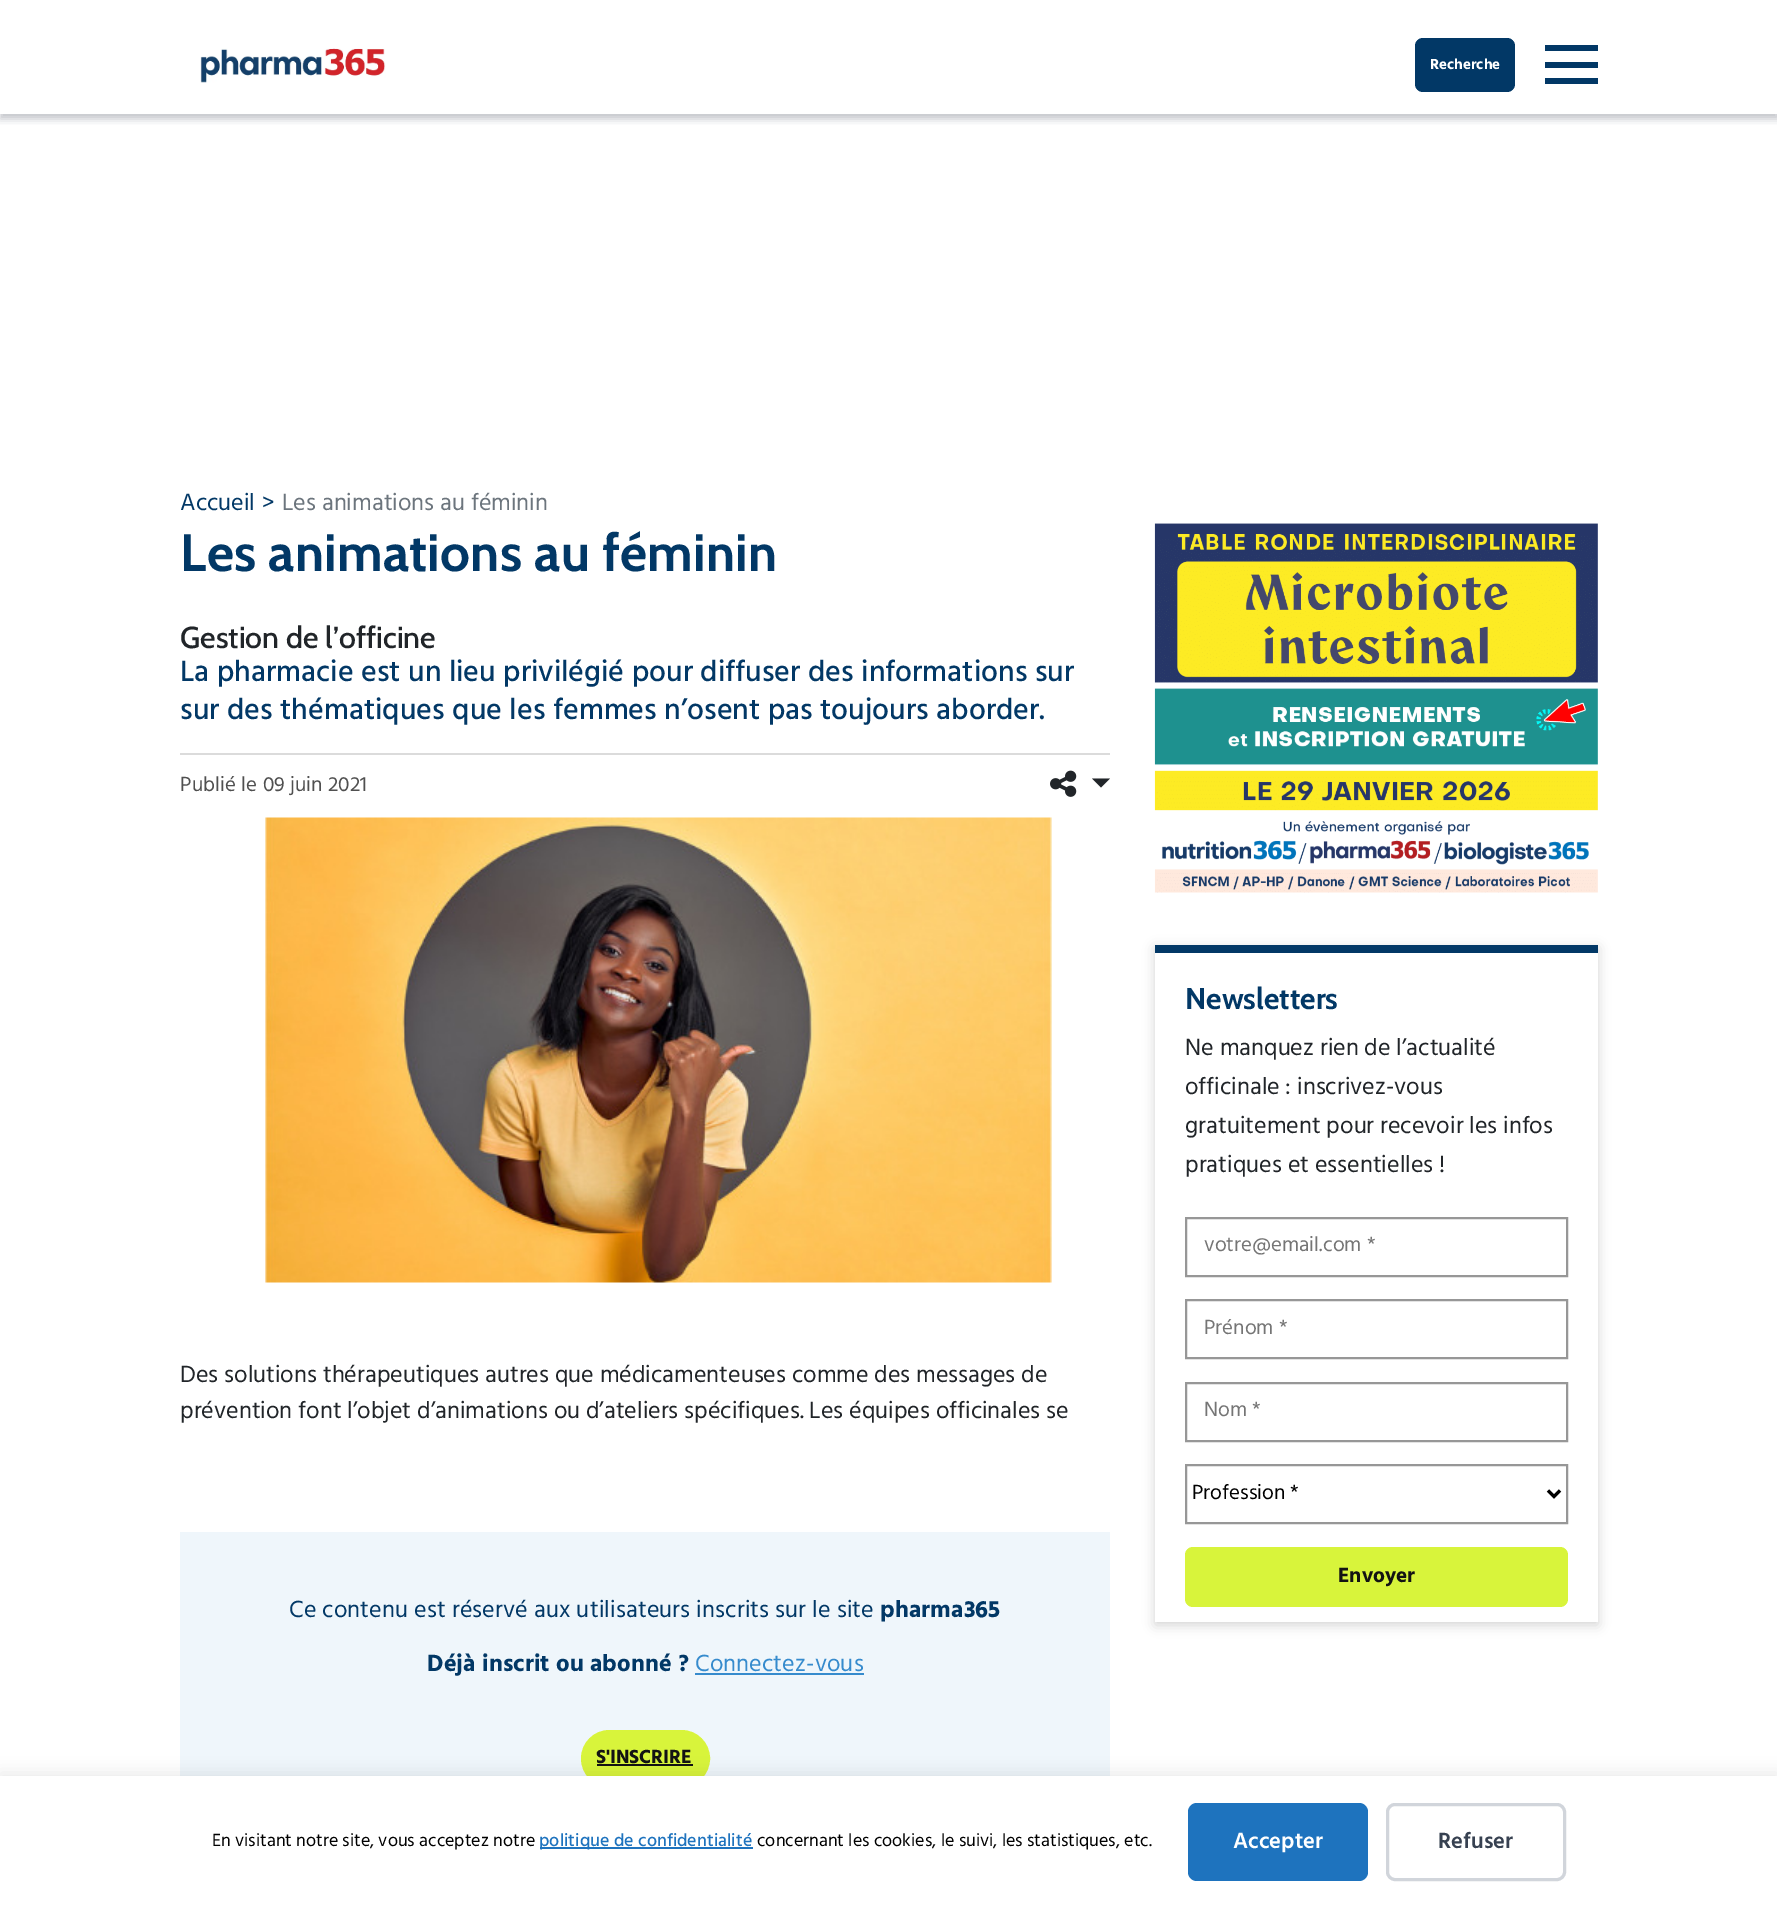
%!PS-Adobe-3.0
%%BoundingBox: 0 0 1777 1907
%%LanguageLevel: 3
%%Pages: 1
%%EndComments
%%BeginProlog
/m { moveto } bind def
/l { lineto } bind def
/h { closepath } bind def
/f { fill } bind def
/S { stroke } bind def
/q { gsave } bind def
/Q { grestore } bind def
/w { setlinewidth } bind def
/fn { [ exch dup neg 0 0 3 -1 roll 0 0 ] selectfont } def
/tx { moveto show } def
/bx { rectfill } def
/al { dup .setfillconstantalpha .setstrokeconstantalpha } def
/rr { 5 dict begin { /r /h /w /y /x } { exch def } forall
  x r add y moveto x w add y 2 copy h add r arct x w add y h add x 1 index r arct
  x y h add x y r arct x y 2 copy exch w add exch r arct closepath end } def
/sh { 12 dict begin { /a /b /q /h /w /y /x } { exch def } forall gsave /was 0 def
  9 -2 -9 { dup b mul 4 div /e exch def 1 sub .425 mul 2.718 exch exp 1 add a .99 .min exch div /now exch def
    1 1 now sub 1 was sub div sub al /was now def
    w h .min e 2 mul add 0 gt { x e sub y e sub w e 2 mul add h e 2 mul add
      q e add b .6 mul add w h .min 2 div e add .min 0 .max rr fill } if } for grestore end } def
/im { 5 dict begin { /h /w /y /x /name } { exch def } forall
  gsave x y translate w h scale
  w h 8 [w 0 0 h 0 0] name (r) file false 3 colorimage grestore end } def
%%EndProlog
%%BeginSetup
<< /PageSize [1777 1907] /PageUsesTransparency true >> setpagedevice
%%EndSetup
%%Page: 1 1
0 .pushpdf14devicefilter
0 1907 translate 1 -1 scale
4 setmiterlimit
1 setgray
0 0 1777 1907 bx
q
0 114 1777 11 rectclip
0.224 0.247 0.282 setrgbcolor
0 5 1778 114 0 4 0.3 sh
Q
(image0.raw) 200 48 186 35 im
0.008 0.22 0.4 setrgbcolor
1415 38 100 54 8 rr f
/Hind-Bold 15 fn
1 setgray
(Recherche) 1430 69 tx
0.008 0.22 0.4 setrgbcolor
1545 45 53 6 bx
1545 62 53 6 bx
1545 78 53 6 bx
/Hind-Regular 24 fn
(Accueil) 180 510 tx
(>) 262 510 tx
0.424 0.459 0.49 setrgbcolor
(Les animations au féminin) 282 510 tx
/Cabin-Bold 52.5 fn
0.008 0.22 0.4 setrgbcolor
180 571 m 0.25 0 (Les animations au féminin) ashow
/Cabin-Medium 30.25 fn
0.129 0.145 0.161 setrgbcolor
(Gestion de l’officine) 180 648 tx
/Hind-Medium 30 fn
0.008 0.22 0.4 setrgbcolor
180 681 m 0.05 0 (La pharmacie est un lieu privilégié pour diffuser des informations sur) ashow
180 719 m 0.05 0 (sur des thématiques que les femmes n’osent pas toujours aborder.) ashow
0.859 setgray
180 753 930 2 bx
/Hind-Regular 21 fn
0.314 setgray
180 791 m 0.1 0 (Publié le 09 juin 2021) ashow
(image1.raw) 1050 770 27 27 im
0.129 0.145 0.161 setrgbcolor
1092 778.5 m 1110 778.5 l 1101 787.5 l h f
(image2.raw) 265 817 787 466 im
/Hind-Regular 24 fn
(Des solutions thérapeutiques autres que médicamenteuses comme des messages de) 180 1382 tx
(prévention font l’objet d’animations ou d’ateliers spécifiques. Les équipes officinales se) 180 1418 tx
0.937 0.965 0.984 setrgbcolor
180 1532 930 244 bx
0.008 0.22 0.4 setrgbcolor
289 1617 m 0.13 0 (Ce contenu est réservé aux utilisateurs inscrits sur le site) ashow
/Hind-Bold 24 fn
880 1617 m 0.13 0 (pharma365) ashow
427 1671 m 0.13 0 (Déjà inscrit ou abonné ?) ashow
/Hind-Regular 24 fn
0.212 0.545 0.804 setrgbcolor
695 1671 m 0.13 0 (Connectez-vous) ashow
695 1673 169 2 bx
0.847 0.957 0.231 setrgbcolor
582 1731 127 55 27.5 rr q f Q
2 w
S
/Hind-Bold 19.5 fn
0.075 setgray
(S'INSCRIRE) 596 1763 tx
597 1764 96 2 bx
(image3.raw) 1154 523 444 370 im
q
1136 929 m 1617 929 l 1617 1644 l 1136 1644 l h 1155 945 m 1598 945 l 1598 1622 l 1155 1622 l h eoclip newpath
0 setgray
1155 948 443 677 0 6 0.17 sh
Q
0.008 0.22 0.4 setrgbcolor
1155 945 443 8 bx
/Cabin-Bold 30 fn
(Newsletters) 1185 1009 tx
/Hind-Regular 24 fn
0.129 0.145 0.161 setrgbcolor
(Ne manquez rien de l’actualité) 1185 1055 tx
(officinale : inscrivez-vous) 1185 1094 tx
(gratuitement pour recevoir les infos) 1185 1133 tx
(pratiques et essentielles !) 1185 1172 tx
0.592 setgray
1186 1218 381 58 rectstroke
/Hind-Regular 21 fn
0.459 setgray
(votre@email.com *) 1204 1251 tx
0.592 setgray
1186 1300 381 58 rectstroke
0.459 setgray
(Prénom *) 1204 1334 tx
0.592 setgray
1186 1383 381 58 rectstroke
0.459 setgray
(Nom *) 1204 1416 tx
0.592 setgray
1186 1465 381 58 rectstroke
0 setgray
3 w
1548 1490.5 m 1554 1496.5 l 1560 1490.5 l S
(Profession *) 1192 1499 tx
0.847 0.957 0.231 setrgbcolor
1185 1547 383 60 8 rr f
/Hind-Bold 21 fn
0.075 setgray
(Envoyer) 1338 1582 tx
0 setgray
0 1773 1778 132 0 7.5 0.08 sh
1 setgray
0 1776 1777 131 bx
/Hind-Regular 18 fn
0 setgray
(En visitant notre site, vous acceptez notre) 212 1846 tx
0.118 0.451 0.745 setrgbcolor
540 1847 213 2 bx
/Hind-Medium 18 fn
(politique de confidentialité) 539 1846 tx
/Hind-Regular 18 fn
0 setgray
(concernant les cookies, le suivi, les statistiques, etc.) 757 1846 tx
0.118 0.451 0.745 setrgbcolor
1188 1803 180 78 9 rr f
/Hind-SemiBold 22.5 fn
1 setgray
(Accepter) 1233 1848 tx
0.82 0.835 0.859 setrgbcolor
1387.5 1804.5 177 75 7.5 rr S
0.216 0.255 0.318 setrgbcolor
(Refuser) 1438 1848 tx
.poppdf14devicefilter showpage
%%EOF
